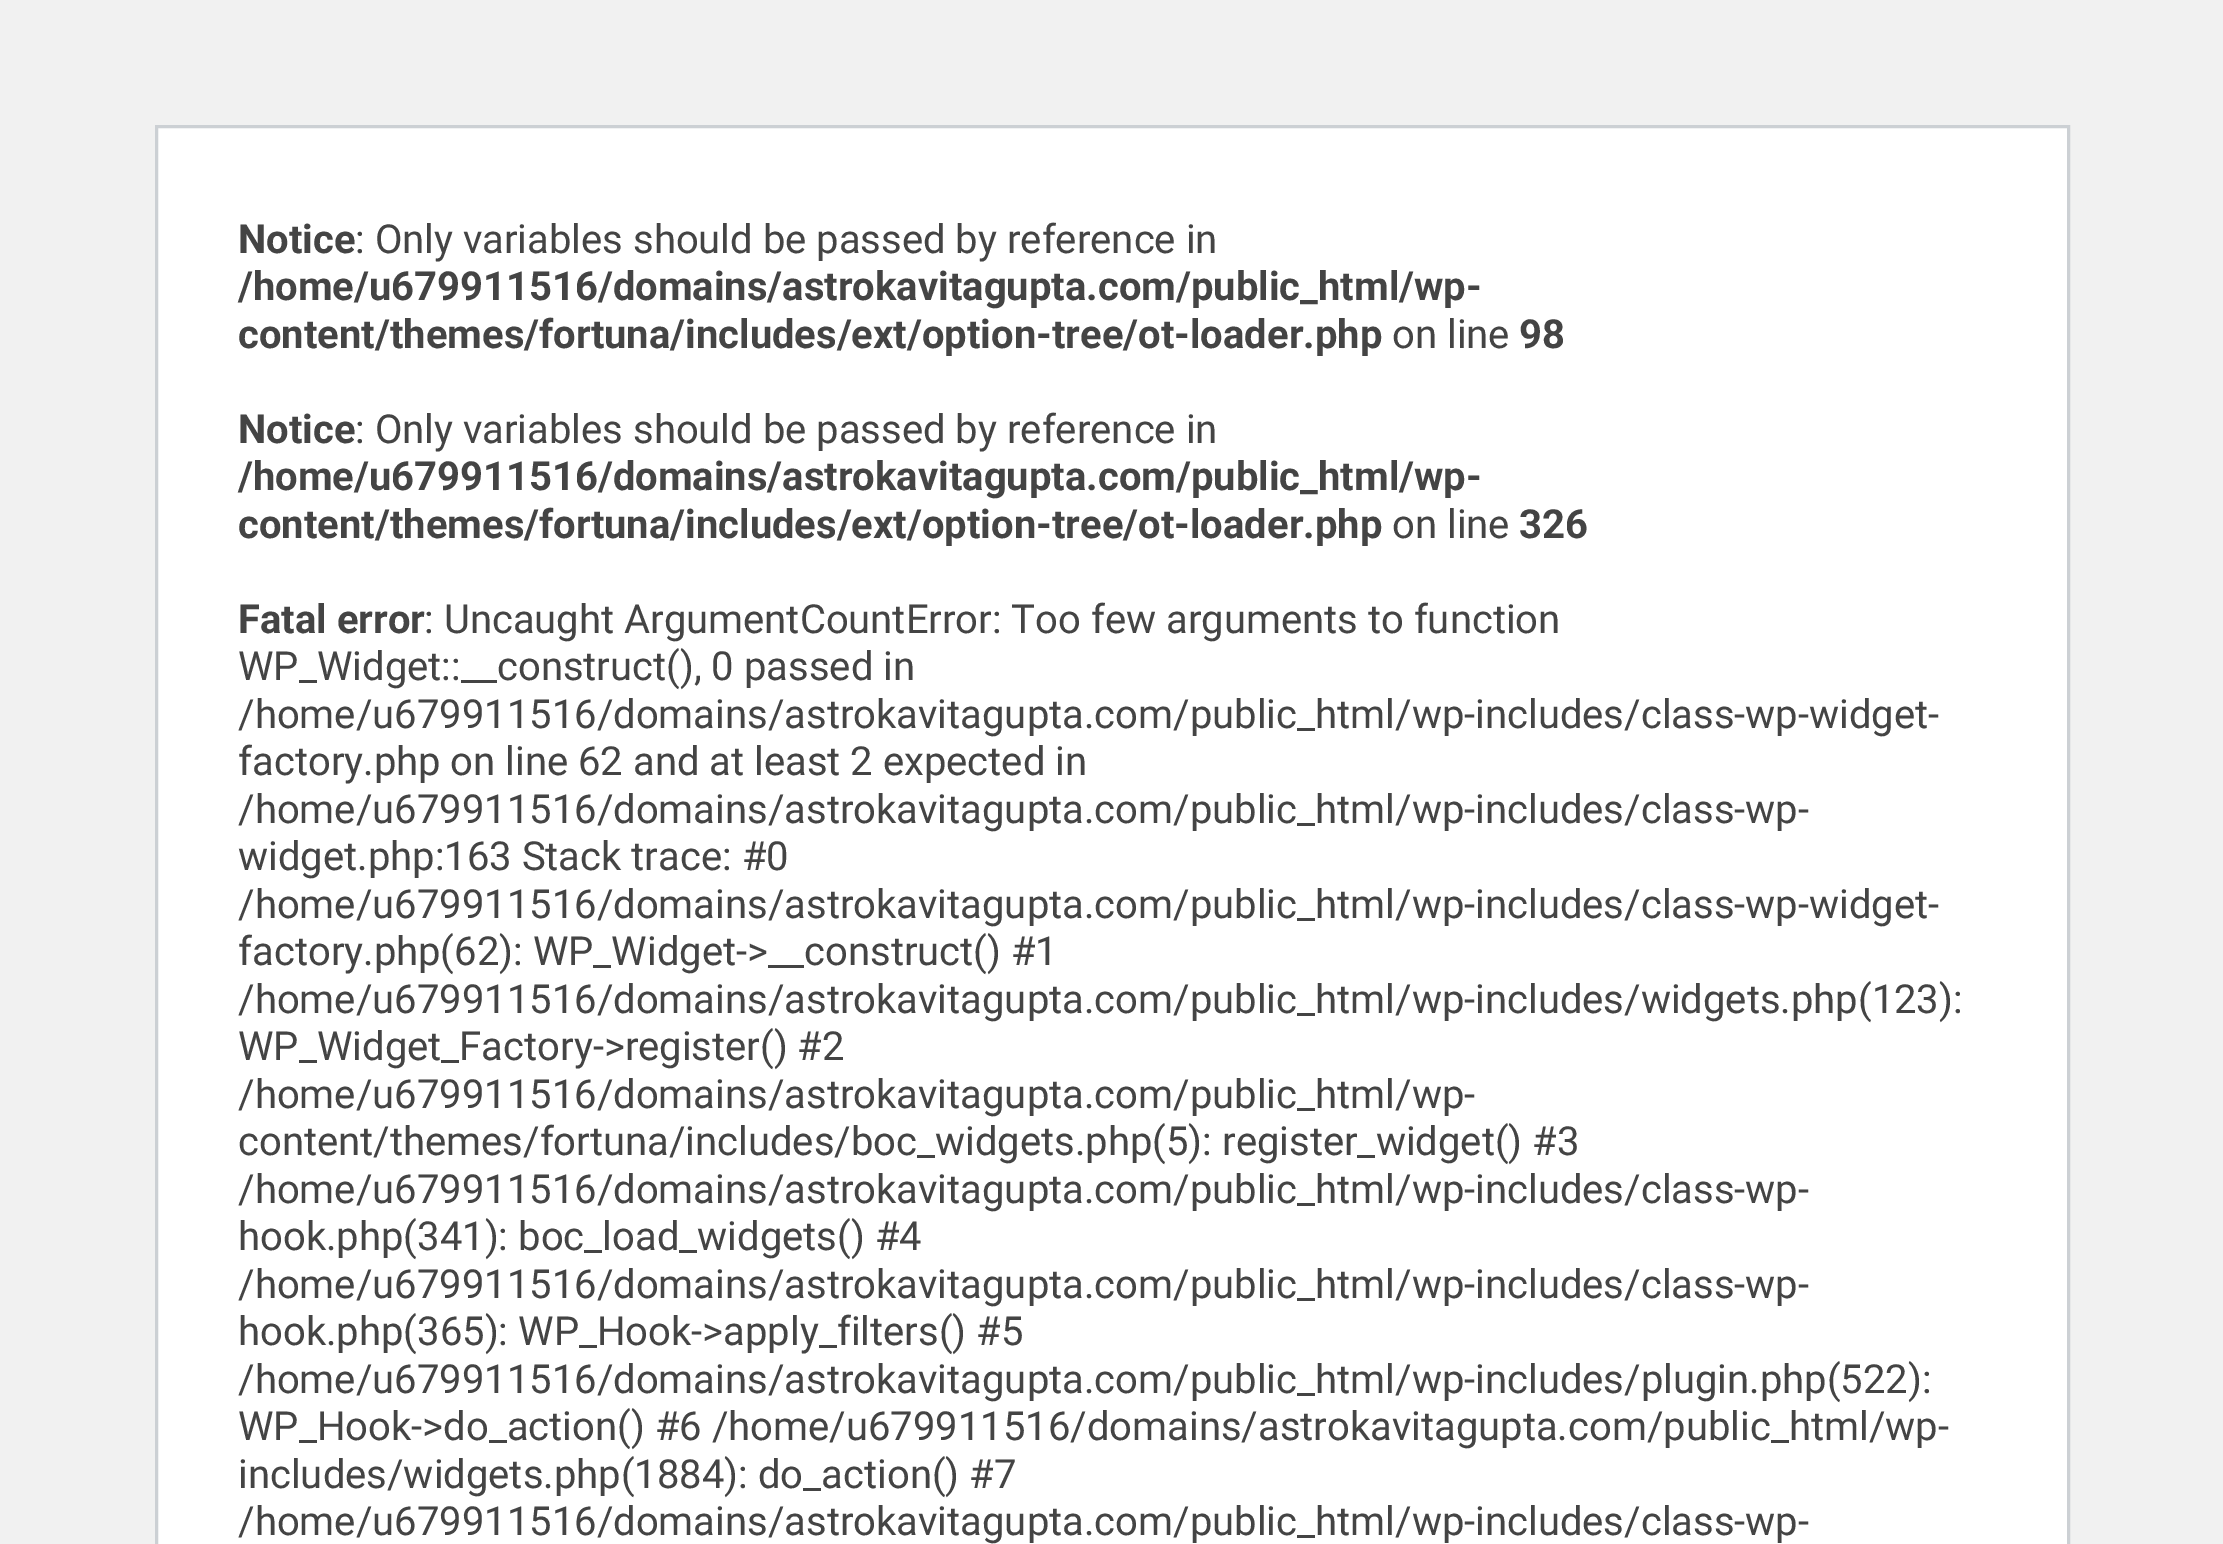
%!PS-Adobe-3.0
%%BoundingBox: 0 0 2223 1544
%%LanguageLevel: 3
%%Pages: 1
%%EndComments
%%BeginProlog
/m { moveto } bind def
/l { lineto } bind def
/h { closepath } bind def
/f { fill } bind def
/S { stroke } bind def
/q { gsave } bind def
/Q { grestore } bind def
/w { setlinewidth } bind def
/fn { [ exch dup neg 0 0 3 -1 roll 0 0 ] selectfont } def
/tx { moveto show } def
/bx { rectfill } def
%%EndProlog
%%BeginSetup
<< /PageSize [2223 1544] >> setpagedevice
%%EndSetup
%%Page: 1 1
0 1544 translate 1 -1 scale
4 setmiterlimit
0.945 setgray
0 0 2223 1544 bx
1 setgray
156.5 126.5 m 2068.5 126.5 l 2068.5 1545.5 l 156.5 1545.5 l h q f Q
0.8 0.816 0.831 setrgbcolor
3 w
S
/Roboto-Bold 40 fn
0.267 setgray
(Notice) 238 253 tx
/Roboto-Regular 40 fn
(: Only variables should be passed by reference in) 355 253 tx
/Roboto-Bold 40 fn
(/home/u679911516/domains/astrokavitagupta.com/public_html/wp-) 238 300 tx
(content/themes/fortuna/includes/ext/option-tree/ot-loader.php) 238 348 tx
/Roboto-Regular 40 fn
(on line) 1392 348 tx
/Roboto-Bold 40 fn
(98) 1519 348 tx
(Notice) 238 443 tx
/Roboto-Regular 40 fn
(: Only variables should be passed by reference in) 355 443 tx
/Roboto-Bold 40 fn
(/home/u679911516/domains/astrokavitagupta.com/public_html/wp-) 238 490 tx
(content/themes/fortuna/includes/ext/option-tree/ot-loader.php) 238 538 tx
/Roboto-Regular 40 fn
(on line) 1392 538 tx
/Roboto-Bold 40 fn
(326) 1519 538 tx
(Fatal error) 238 633 tx
/Roboto-Regular 40 fn
(: Uncaught ArgumentCountError: Too few arguments to function) 424 633 tx
(WP_Widget::__construct\(\), 0 passed in) 238 680 tx
(/home/u679911516/domains/astrokavitagupta.com/public_html/wp-includes/class-wp-widget-) 238 728 tx
(factory.php on line 62 and at least 2 expected in) 238 775 tx
(/home/u679911516/domains/astrokavitagupta.com/public_html/wp-includes/class-wp-) 238 823 tx
(widget.php:163 Stack trace: #0) 238 870 tx
(/home/u679911516/domains/astrokavitagupta.com/public_html/wp-includes/class-wp-widget-) 238 918 tx
(factory.php\(62\): WP_Widget->__construct\(\) #1) 238 965 tx
(/home/u679911516/domains/astrokavitagupta.com/public_html/wp-includes/widgets.php\(123\):) 238 1013 tx
(WP_Widget_Factory->register\(\) #2) 238 1060 tx
(/home/u679911516/domains/astrokavitagupta.com/public_html/wp-) 238 1108 tx
(content/themes/fortuna/includes/boc_widgets.php\(5\): register_widget\(\) #3) 238 1155 tx
(/home/u679911516/domains/astrokavitagupta.com/public_html/wp-includes/class-wp-) 238 1203 tx
(hook.php\(341\): boc_load_widgets\(\) #4) 238 1250 tx
(/home/u679911516/domains/astrokavitagupta.com/public_html/wp-includes/class-wp-) 238 1298 tx
(hook.php\(365\): WP_Hook->apply_filters\(\) #5) 238 1345 tx
(/home/u679911516/domains/astrokavitagupta.com/public_html/wp-includes/plugin.php\(522\):) 238 1393 tx
(WP_Hook->do_action\(\) #6 /home/u679911516/domains/astrokavitagupta.com/public_html/wp-) 238 1440 tx
(includes/widgets.php\(1884\): do_action\(\) #7) 238 1488 tx
(/home/u679911516/domains/astrokavitagupta.com/public_html/wp-includes/class-wp-) 238 1535 tx
showpage
%%EOF
